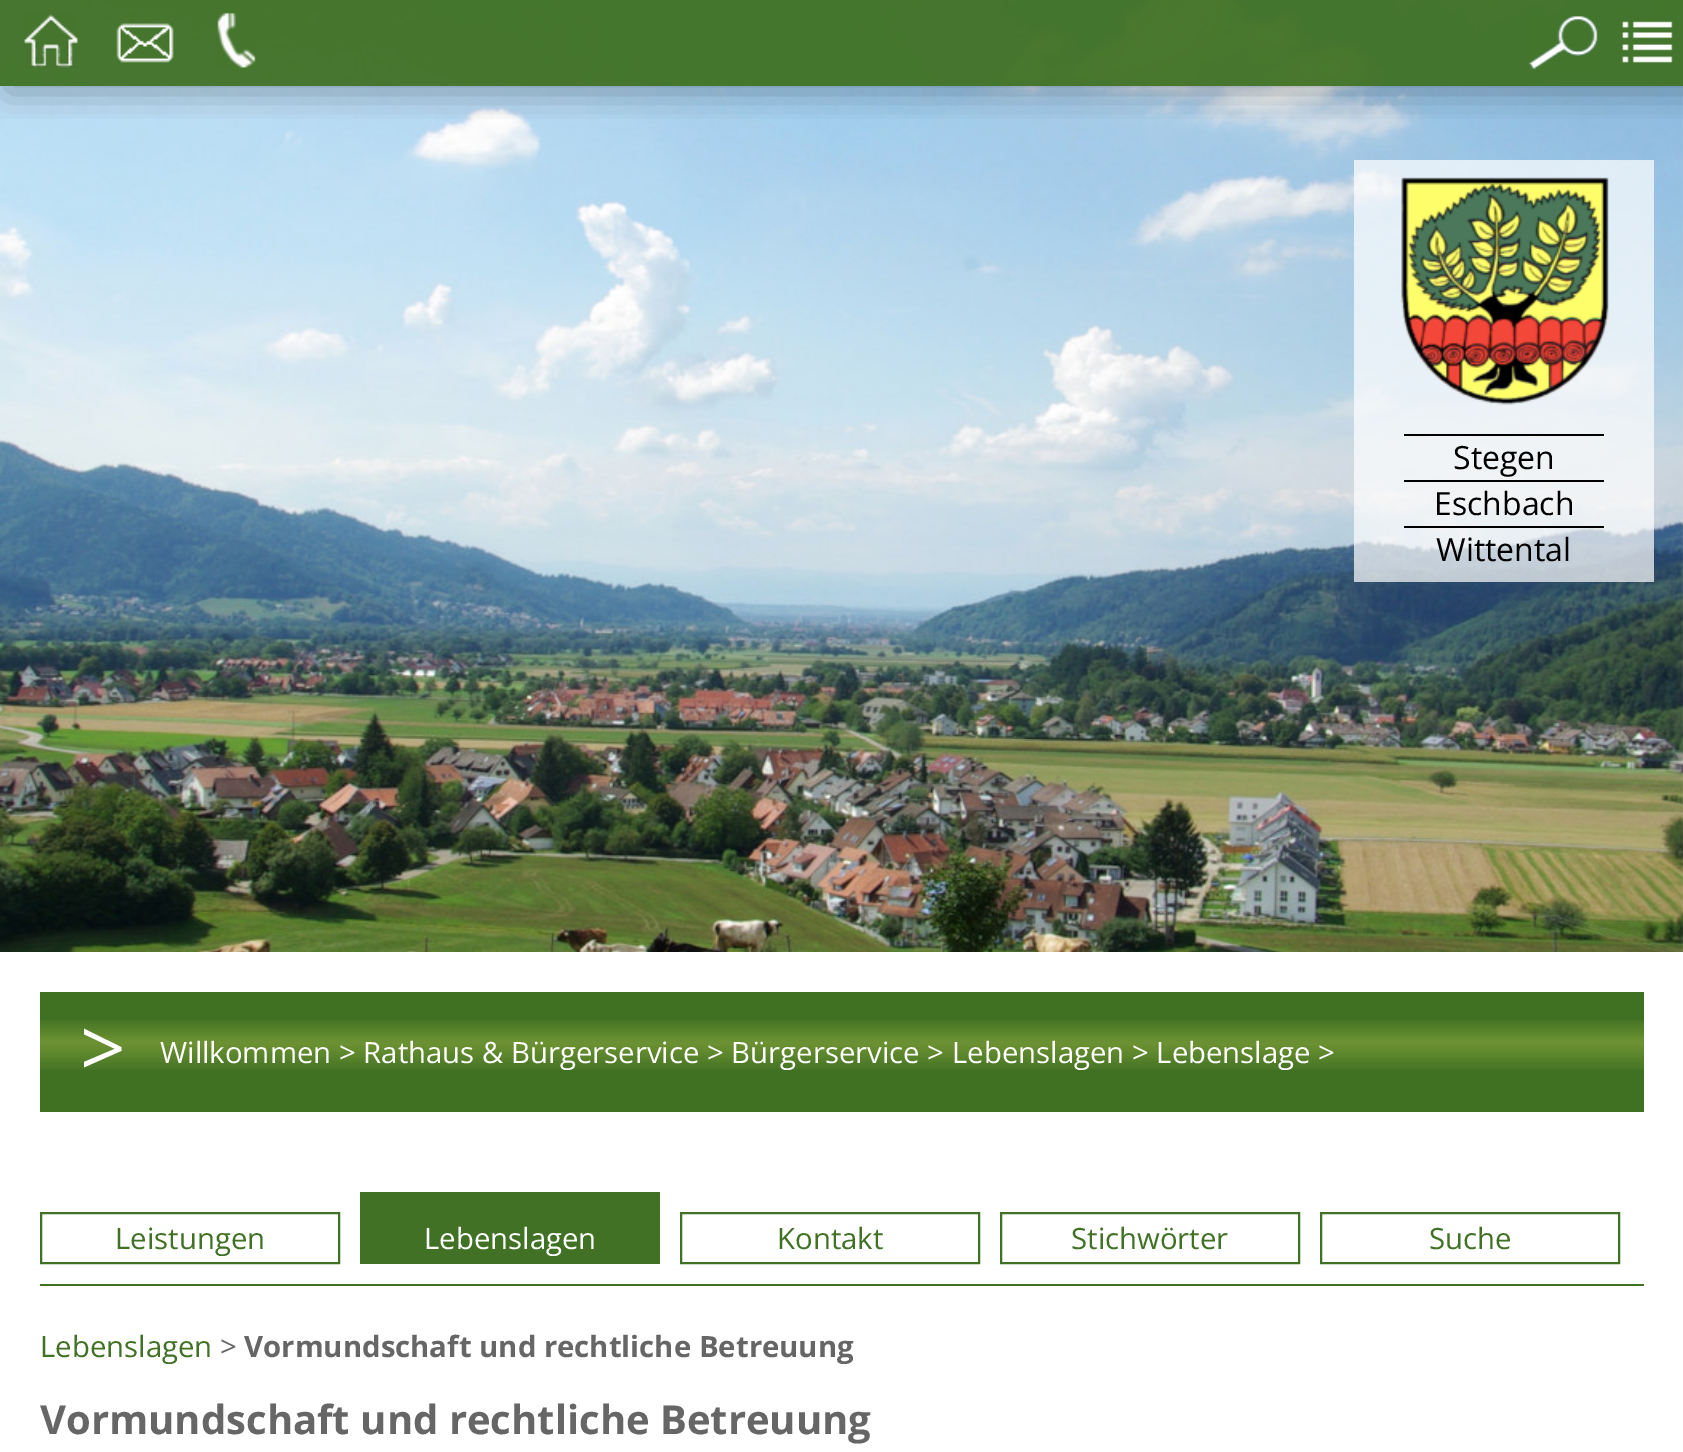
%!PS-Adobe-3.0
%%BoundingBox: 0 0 1683 1452
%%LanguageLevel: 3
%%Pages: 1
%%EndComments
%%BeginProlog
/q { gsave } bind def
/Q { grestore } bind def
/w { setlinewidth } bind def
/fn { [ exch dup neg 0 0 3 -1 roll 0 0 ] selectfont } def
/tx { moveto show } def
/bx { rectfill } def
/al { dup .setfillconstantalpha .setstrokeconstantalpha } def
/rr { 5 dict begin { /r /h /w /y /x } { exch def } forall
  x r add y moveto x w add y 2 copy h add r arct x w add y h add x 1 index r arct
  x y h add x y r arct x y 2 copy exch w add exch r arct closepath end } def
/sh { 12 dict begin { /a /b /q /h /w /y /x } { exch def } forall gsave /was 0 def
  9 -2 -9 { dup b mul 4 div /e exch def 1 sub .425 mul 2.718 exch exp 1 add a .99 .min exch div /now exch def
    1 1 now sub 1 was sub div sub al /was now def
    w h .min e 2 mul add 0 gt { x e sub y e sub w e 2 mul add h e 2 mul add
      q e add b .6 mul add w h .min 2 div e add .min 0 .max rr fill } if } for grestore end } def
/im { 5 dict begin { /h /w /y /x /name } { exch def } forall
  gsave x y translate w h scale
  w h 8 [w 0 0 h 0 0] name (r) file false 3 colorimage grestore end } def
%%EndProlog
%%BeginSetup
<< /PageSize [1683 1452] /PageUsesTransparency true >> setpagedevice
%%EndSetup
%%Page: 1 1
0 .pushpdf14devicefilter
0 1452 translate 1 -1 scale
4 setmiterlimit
1 setgray
0 0 1683 1452 bx
(image5.raw) 0 0 1683 952 im
q
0 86 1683 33 rectclip
0 setgray
6 18 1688 74 0 18 0.3 sh
Q
0.95 al
0.251 0.443 0.141 setrgbcolor
0 0 1683 86 bx
1 al
(image0.raw) 24 14 54 54 im
(image1.raw) 116 23 58 40 im
(image2.raw) 217 12 39 56 im
(image3.raw) 1528 16 70 54 im
(image4.raw) 1622 21 51 42 im
0.7 al
1 setgray
1354 160 300 422 bx
1 al
(image6.raw) 1401 177 208 228 im
0 setgray
1404 434 200 2 bx
/OpenSans-Regular 32 fn
(Stegen) 1453 469 tx
1404 480 200 2 bx
(Eschbach) 1434 515 tx
1404 526 200 2 bx
(Wittental) 1436 561 tx
0.251 0.443 0.137 setrgbcolor
40 992 1604 120 bx
(image7.raw) 40 1020 1604 50 im
/OpenSans-Regular 80 fn
1 setgray
(>) 80 1077 tx
/OpenSans-Regular 29.35 fn
(Willkommen > Rathaus & Bürgerservice > Bürgerservice > Lebenslagen > Lebenslage >) 160 1063 tx
0.251 0.443 0.141 setrgbcolor
40 1284 1604 2 bx
2 w
41 1213 298 50 rectstroke
(Leistungen) 115 1249 tx
360 1192 300 72 bx
1 setgray
(Lebenslagen) 424 1249 tx
0.251 0.443 0.141 setrgbcolor
681 1213 298 50 rectstroke
(Kontakt) 777 1249 tx
1001 1213 298 50 rectstroke
(Stichwörter) 1071 1249 tx
1321 1213 298 50 rectstroke
(Suche) 1429 1249 tx
(Lebenslagen) 40 1357 tx
0.4 setgray
(>) 220 1357 tx
/OpenSans-Bold 29.35 fn
(Vormundschaft und rechtliche Betreuung) 244 1357 tx
/OpenSans-Bold 40 fn
(Vormundschaft und rechtliche Betreuung) 40 1434 tx
.poppdf14devicefilter showpage
%%EOF
